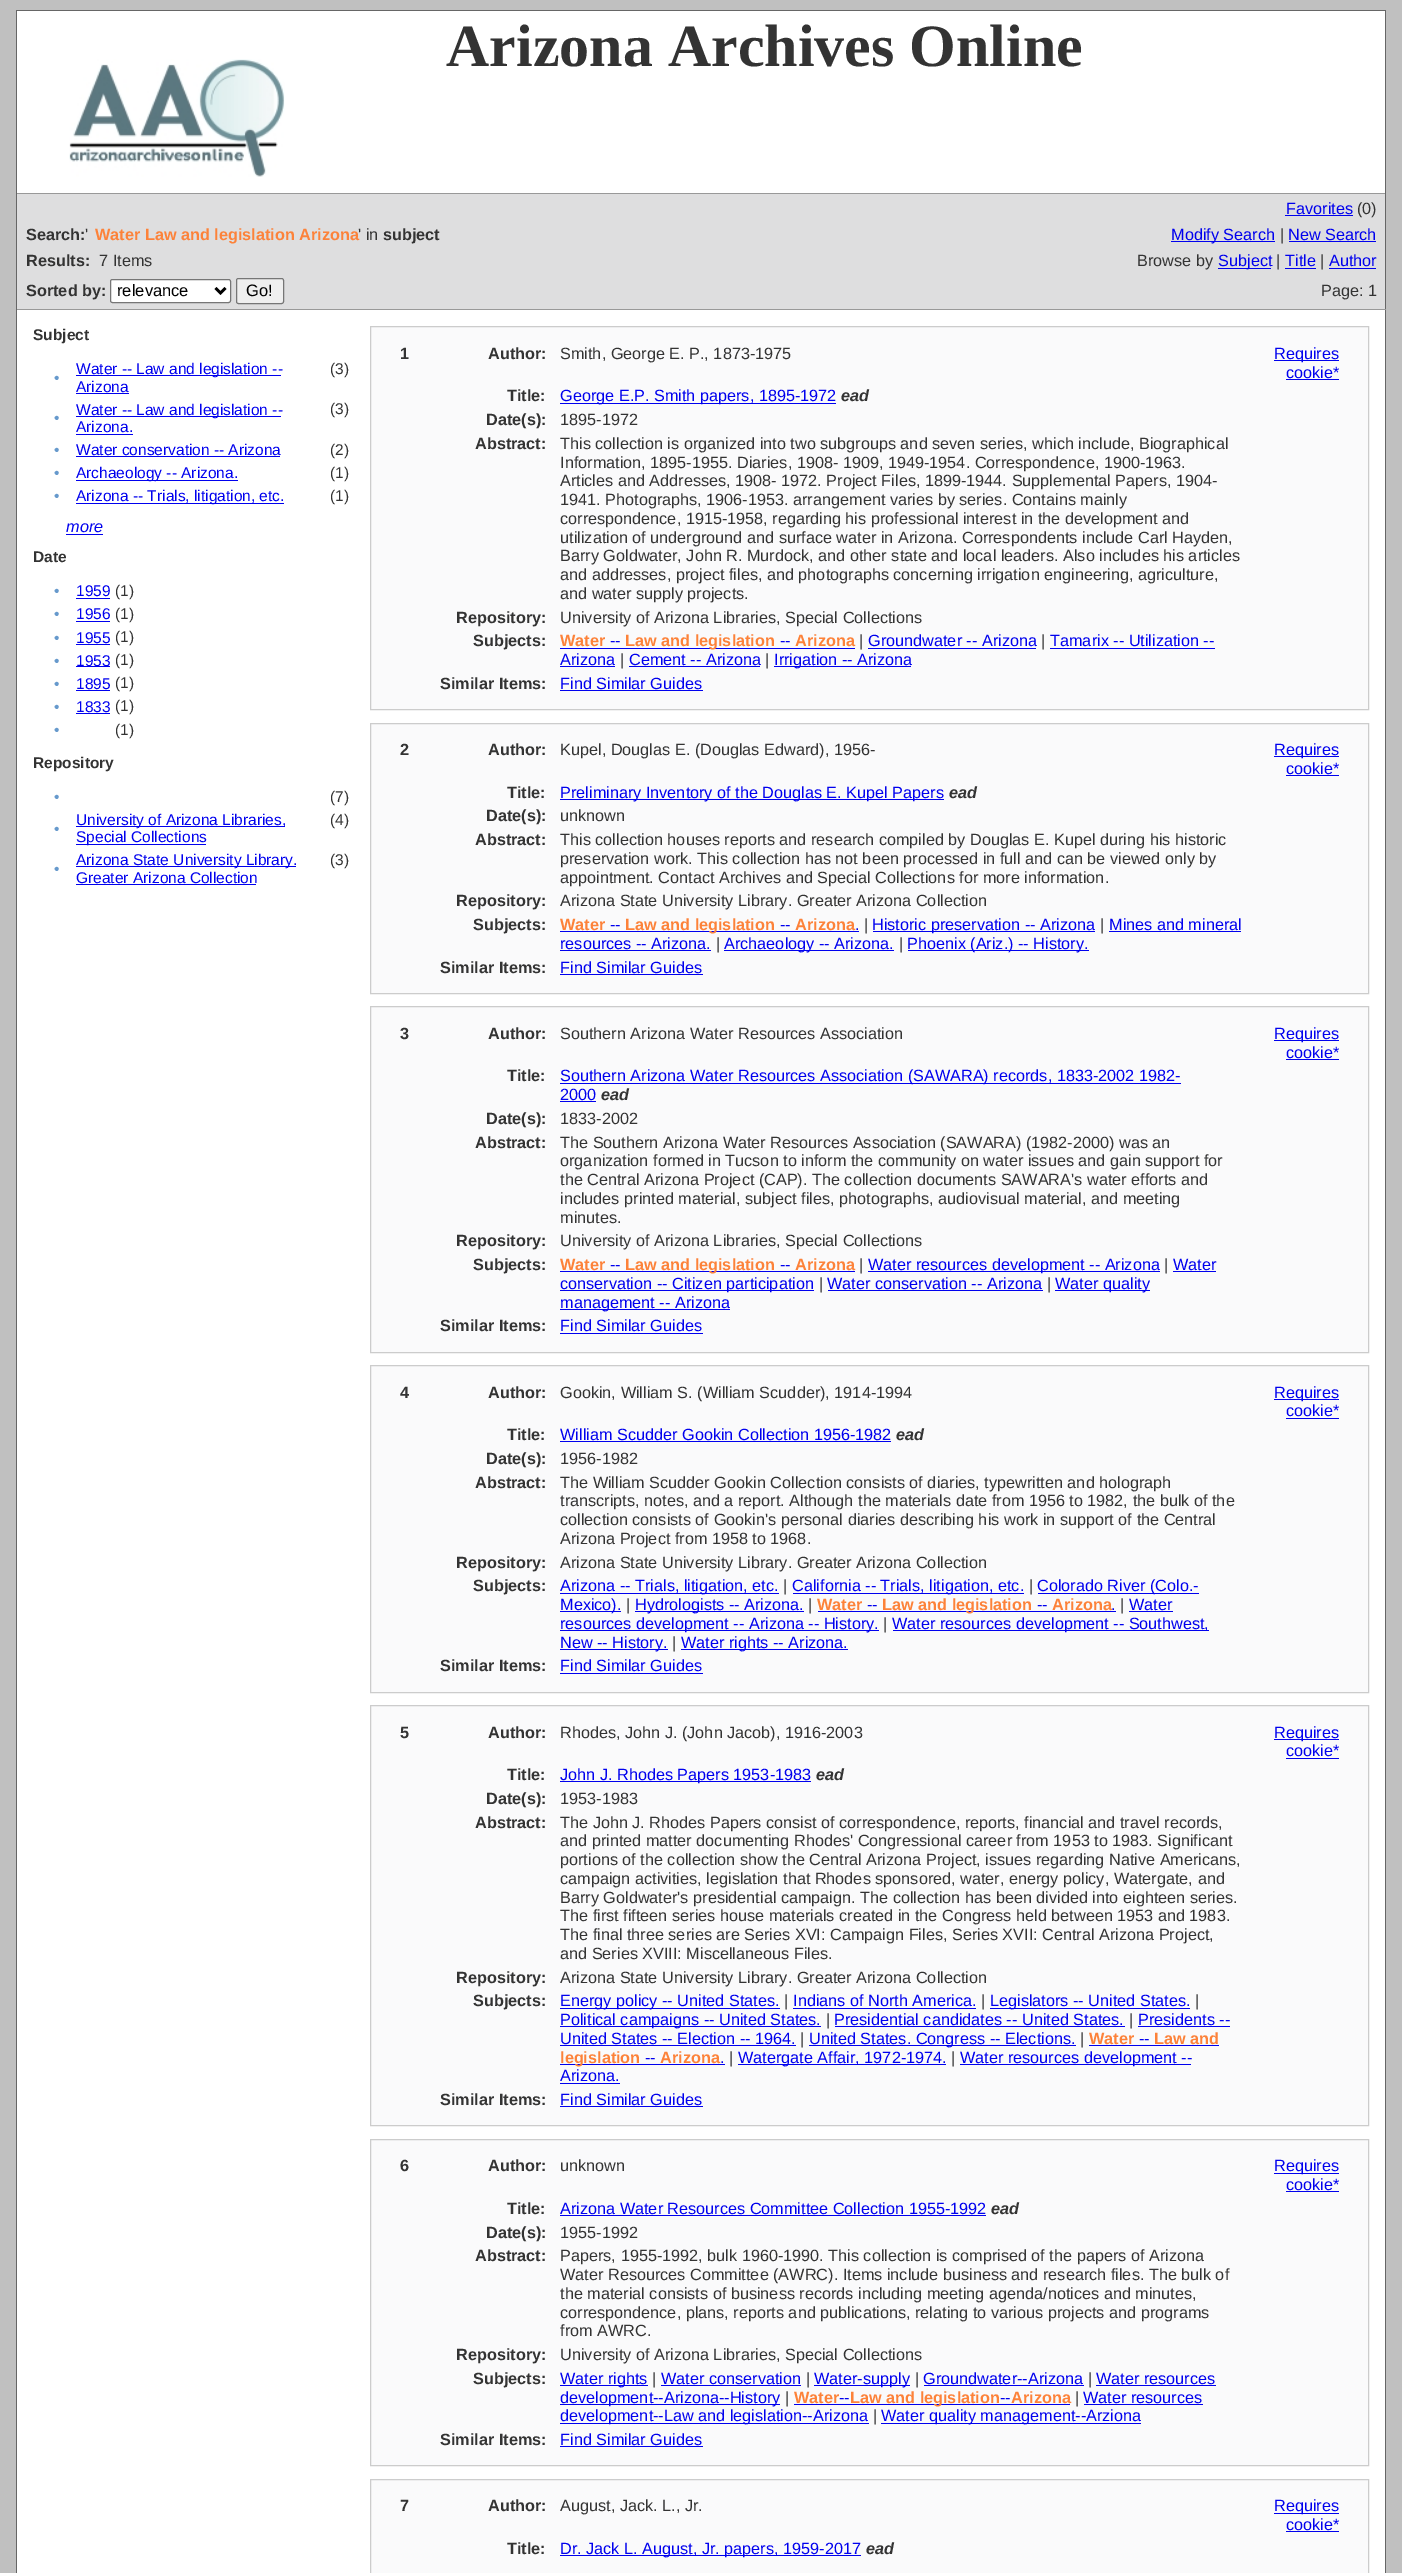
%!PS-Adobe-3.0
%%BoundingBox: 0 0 1402 2573
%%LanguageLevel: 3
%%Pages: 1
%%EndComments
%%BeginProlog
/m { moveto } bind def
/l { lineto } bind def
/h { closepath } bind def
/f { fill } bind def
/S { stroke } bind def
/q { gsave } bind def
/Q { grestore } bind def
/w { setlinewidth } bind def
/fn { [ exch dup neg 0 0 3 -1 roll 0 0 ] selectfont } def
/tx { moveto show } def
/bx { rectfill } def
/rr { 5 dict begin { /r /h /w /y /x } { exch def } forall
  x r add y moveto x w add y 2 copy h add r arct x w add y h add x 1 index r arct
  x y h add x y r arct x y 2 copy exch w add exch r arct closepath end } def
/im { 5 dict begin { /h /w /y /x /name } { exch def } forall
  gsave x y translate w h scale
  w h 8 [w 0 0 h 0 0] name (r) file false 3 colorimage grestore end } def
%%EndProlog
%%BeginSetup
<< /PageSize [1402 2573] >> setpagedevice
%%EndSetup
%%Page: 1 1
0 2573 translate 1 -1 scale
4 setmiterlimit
0.753 setgray
0 0 1402 2573 bx
1 setgray
17 11 1368 182 bx
0.4 setgray
16 10 1370 1 bx
1385 10 1 183 bx
16 10 1 183 bx
/LiberationSerif-Bold 60 fn
0.2 setgray
(Arizona Archives Online) 446 66 tx
(image0.raw) 69 59 216 118 im
0.871 0.871 0.875 setrgbcolor
17 194 1368 115 bx
0.6 setgray
16 193 1370 1 bx
0.4 setgray
1385 193 1 2380 bx
0.6 setgray
16 309 1370 1 bx
0.4 setgray
16 193 1 2380 bx
/LiberationSans-Regular 16.25 fn
0 0 0.933 setrgbcolor
(Favorites) 1286 214 tx
1285 215 68 1 bx
0.2 setgray
(\(0\)) 1357 214 tx
/LiberationSans-Bold 16.25 fn
(Search:) 26 240 tx
/LiberationSans-Regular 16.25 fn
(') 85 240 tx
/LiberationSans-Bold 16.25 fn
0.992 0.51 0.224 setrgbcolor
(Water Law and legislation Arizona) 95 240 tx
/LiberationSans-Regular 16.25 fn
0.2 setgray
(' in) 358 240 tx
/LiberationSans-Bold 16.25 fn
(subject) 383 240 tx
0 0 0.933 setrgbcolor
1171 241 104 1 bx
/LiberationSans-Regular 16.25 fn
(Modify Search) 1171 240 tx
0.2 setgray
(|) 1280 240 tx
0 0 0.933 setrgbcolor
(New Search) 1288 240 tx
1289 241 87 1 bx
/LiberationSans-Bold 16.25 fn
0.2 setgray
(Results:) 26 266 tx
/LiberationSans-Regular 16.25 fn
(7 Items) 99 266 tx
(Browse by) 1137 266 tx
0 0 0.933 setrgbcolor
1218 268 53 1 bx
(Subject) 1218 266 tx
0.2 setgray
(|) 1276 266 tx
0 0 0.933 setrgbcolor
(Title) 1285 266 tx
1285 268 31 1 bx
0.2 setgray
(|) 1320 266 tx
0 0 0.933 setrgbcolor
(Author) 1329 266 tx
1329 268 47 1 bx
/LiberationSans-Bold 16.25 fn
0.2 setgray
(Sorted by:) 26 296 tx
1 setgray
110.5 279.5 120 23 2 rr q f Q
0.463 setgray
S
0 setgray
2.5 w
215.5 288 m 220.5 293 l 225.5 288 l S
/LiberationSans-Regular 16.5 fn
(relevance) 117 296 tx
0.937 setgray
236.5 278.5 47 25 2 rr q f Q
0.463 setgray
1 w
S
0 setgray
(Go!) 246 296 tx
/LiberationSans-Regular 16.25 fn
0.2 setgray
(Page: 1) 1321 296 tx
1 setgray
17 310 1368 2263 bx
/LiberationSans-Bold 15.5 fn
0.2 setgray
(Subject) 33 340 tx
/LiberationSans-Regular 15.5 fn
0.4 0.6 0.8 setrgbcolor
(•) 54 383 tx
0 0 0.933 setrgbcolor
76 375 205 1 bx
(Water -- Law and legislation --) 76 374 tx
(Arizona) 76 392 tx
76 393 53 1 bx
0.2 setgray
(\(3\)) 330 374 tx
0.4 0.6 0.8 setrgbcolor
(•) 54 423 tx
0 0 0.933 setrgbcolor
76 416 205 1 bx
(Water -- Law and legislation --) 76 415 tx
(Arizona.) 76 432 tx
76 434 57 1 bx
0.2 setgray
(\(3\)) 330 414 tx
0.4 0.6 0.8 setrgbcolor
(•) 54 455 tx
0 0 0.933 setrgbcolor
(Water conservation -- Arizona) 76 455 tx
76 456 204 1 bx
0.2 setgray
(\(2\)) 330 455 tx
0.4 0.6 0.8 setrgbcolor
(•) 54 478 tx
0 0 0.933 setrgbcolor
76 480 162 1 bx
(Archaeology -- Arizona.) 76 478 tx
0.2 setgray
(\(1\)) 330 478 tx
0.4 0.6 0.8 setrgbcolor
(•) 54 501 tx
0 0 0.933 setrgbcolor
76 503 208 1 bx
(Arizona -- Trials, litigation, etc.) 76 501 tx
0.2 setgray
(\(1\)) 330 501 tx
/LiberationSans-Italic 16.25 fn
0 0 0.933 setrgbcolor
(more) 66 532 tx
66 534 37 1 bx
/LiberationSans-Bold 15.5 fn
0.2 setgray
(Date) 33 562 tx
/LiberationSans-Regular 15.5 fn
0.4 0.6 0.8 setrgbcolor
(•) 54 596 tx
0 0 0.933 setrgbcolor
(1959) 76 596 tx
76 598 34 1 bx
0.2 setgray
(\(1\)) 115 596 tx
0.4 0.6 0.8 setrgbcolor
(•) 54 619 tx
0 0 0.933 setrgbcolor
(1956) 76 619 tx
76 621 34 1 bx
0.2 setgray
(\(1\)) 115 619 tx
0.4 0.6 0.8 setrgbcolor
(•) 54 643 tx
0 0 0.933 setrgbcolor
(1955) 76 643 tx
76 644 34 1 bx
0.2 setgray
(\(1\)) 115 642 tx
0.4 0.6 0.8 setrgbcolor
(•) 54 666 tx
0 0 0.933 setrgbcolor
76 666 34 1 bx
(1953) 76 666 tx
0.2 setgray
(\(1\)) 115 665 tx
0.4 0.6 0.8 setrgbcolor
(•) 54 689 tx
0 0 0.933 setrgbcolor
(1895) 76 689 tx
76 690 34 1 bx
0.2 setgray
(\(1\)) 115 688 tx
0.4 0.6 0.8 setrgbcolor
(•) 54 712 tx
0 0 0.933 setrgbcolor
(1833) 76 712 tx
76 713 34 1 bx
0.2 setgray
(\(1\)) 115 711 tx
0.4 0.6 0.8 setrgbcolor
(•) 54 735 tx
0.2 setgray
(\(1\)) 115 735 tx
/LiberationSans-Bold 15.5 fn
(Repository) 33 768 tx
/LiberationSans-Regular 15.5 fn
0.4 0.6 0.8 setrgbcolor
(•) 54 802 tx
0.2 setgray
(\(7\)) 330 802 tx
0.4 0.6 0.8 setrgbcolor
(•) 54 834 tx
0 0 0.933 setrgbcolor
76 826 209 1 bx
(University of Arizona Libraries,) 76 825 tx
76 844 130 1 bx
(Special Collections) 76 842 tx
0.2 setgray
(\(4\)) 330 825 tx
0.4 0.6 0.8 setrgbcolor
(•) 54 874 tx
0 0 0.933 setrgbcolor
76 866 220 1 bx
(Arizona State University Library.) 76 865 tx
(Greater Arizona Collection) 76 883 tx
76 884 180 1 bx
0.2 setgray
(\(3\)) 330 865 tx
0.98 0.98 0.984 setrgbcolor
370.5 326.5 m 1368.5 326.5 l 1368.5 709.5 l 370.5 709.5 l h q f Q
0.8 setgray
S
/LiberationSans-Bold 16.25 fn
0.2 setgray
(1) 400 359 tx
(Author:) 488 359 tx
/LiberationSans-Regular 16.25 fn
(Smith, George E. P., 1873-1975) 560 359 tx
0 0 0.933 setrgbcolor
1274 360 65 1 bx
(Requires) 1274 359 tx
(cookie*) 1286 378 tx
1286 379 53 1 bx
/LiberationSans-Bold 16.25 fn
0.2 setgray
(Title:) 507 401 tx
0 0 0.933 setrgbcolor
560 403 276 1 bx
/LiberationSans-Regular 16.25 fn
(George E.P. Smith papers, 1895-1972) 560 401 tx
/LiberationSans-BoldItalic 16.25 fn
0.2 setgray
(ead) 841 401 tx
/LiberationSans-Bold 16.25 fn
(Date\(s\):) 486 425 tx
/LiberationSans-Regular 16.25 fn
(1895-1972) 560 425 tx
/LiberationSans-Bold 16.25 fn
(Abstract:) 475 449 tx
/LiberationSans-Regular 16.25 fn
(This collection is organized into two subgroups and seven series, which include, Biographical) 560 449 tx
(Information, 1895-1955. Diaries, 1908- 1909, 1949-1954. Correspondence, 1900-1963.) 560 468 tx
(Articles and Addresses, 1908- 1972. Project Files, 1899-1944. Supplemental Papers, 1904-) 560 486 tx
(1941. Photographs, 1906-1953. arrangement varies by series. Contains mainly) 560 505 tx
(correspondence, 1915-1958, regarding his professional interest in the development and) 560 524 tx
(utilization of underground and surface water in Arizona. Correspondents include Carl Hayden,) 560 543 tx
(Barry Goldwater, John R. Murdock, and other state and local leaders. Also includes his articles) 560 561 tx
(and addresses, project files, and photographs concerning irrigation engineering, agriculture,) 560 580 tx
(and water supply projects.) 560 599 tx
/LiberationSans-Bold 16.25 fn
(Repository:) 456 623 tx
/LiberationSans-Regular 16.25 fn
(University of Arizona Libraries, Special Collections) 560 623 tx
/LiberationSans-Bold 16.25 fn
(Subjects:) 473 646 tx
0.992 0.51 0.224 setrgbcolor
(Water) 560 646 tx
/LiberationSans-Regular 16.25 fn
0 0 0.933 setrgbcolor
(--) 610 646 tx
560 648 295 1 bx
/LiberationSans-Bold 16.25 fn
0.992 0.51 0.224 setrgbcolor
(Law and legislation) 625 646 tx
/LiberationSans-Regular 16.25 fn
0 0 0.933 setrgbcolor
(--) 780 646 tx
/LiberationSans-Bold 16.25 fn
0.992 0.51 0.224 setrgbcolor
(Arizona) 795 646 tx
/LiberationSans-Regular 16.25 fn
0.2 setgray
(|) 859 646 tx
0 0 0.933 setrgbcolor
(Groundwater -- Arizona) 868 646 tx
868 648 168 1 bx
0.2 setgray
(|) 1041 646 tx
0 0 0.933 setrgbcolor
(Tamarix -- Utilization --) 1050 646 tx
1050 648 165 1 bx
(Arizona) 560 665 tx
560 666 55 1 bx
0.2 setgray
(|) 620 665 tx
0 0 0.933 setrgbcolor
(Cement -- Arizona) 629 665 tx
629 666 131 1 bx
0.2 setgray
(|) 765 665 tx
0 0 0.933 setrgbcolor
774 666 137 1 bx
(Irrigation -- Arizona) 774 665 tx
/LiberationSans-Bold 16.25 fn
0.2 setgray
(Similar Items:) 440 689 tx
/LiberationSans-Regular 16.25 fn
0 0 0.933 setrgbcolor
(Find Similar Guides) 560 689 tx
560 690 143 1 bx
0.98 0.98 0.984 setrgbcolor
370.5 723.5 m 1368.5 723.5 l 1368.5 993.5 l 370.5 993.5 l h q f Q
0.8 setgray
S
/LiberationSans-Bold 16.25 fn
0.2 setgray
(2) 400 755 tx
(Author:) 488 755 tx
/LiberationSans-Regular 16.25 fn
(Kupel, Douglas E. \(Douglas Edward\), 1956-) 560 755 tx
0 0 0.933 setrgbcolor
1274 756 65 1 bx
(Requires) 1274 755 tx
(cookie*) 1286 774 tx
1286 775 53 1 bx
/LiberationSans-Bold 16.25 fn
0.2 setgray
(Title:) 507 798 tx
0 0 0.933 setrgbcolor
560 799 384 1 bx
/LiberationSans-Regular 16.25 fn
(Preliminary Inventory of the Douglas E. Kupel Papers) 560 798 tx
/LiberationSans-BoldItalic 16.25 fn
0.2 setgray
(ead) 949 798 tx
/LiberationSans-Bold 16.25 fn
(Date\(s\):) 486 821 tx
/LiberationSans-Regular 16.25 fn
(unknown) 560 821 tx
/LiberationSans-Bold 16.25 fn
(Abstract:) 475 845 tx
/LiberationSans-Regular 16.25 fn
(This collection houses reports and research compiled by Douglas E. Kupel during his historic) 560 845 tx
(preservation work. This collection has not been processed in full and can be viewed only by) 560 864 tx
(appointment. Contact Archives and Special Collections for more information.) 560 883 tx
/LiberationSans-Bold 16.25 fn
(Repository:) 456 906 tx
/LiberationSans-Regular 16.25 fn
(Arizona State University Library. Greater Arizona Collection) 560 906 tx
/LiberationSans-Bold 16.25 fn
(Subjects:) 473 930 tx
0.992 0.51 0.224 setrgbcolor
(Water) 560 930 tx
/LiberationSans-Regular 16.25 fn
0 0 0.933 setrgbcolor
(--) 610 930 tx
560 931 299 1 bx
/LiberationSans-Bold 16.25 fn
0.992 0.51 0.224 setrgbcolor
(Law and legislation) 625 930 tx
/LiberationSans-Regular 16.25 fn
0 0 0.933 setrgbcolor
(--) 780 930 tx
/LiberationSans-Bold 16.25 fn
0.992 0.51 0.224 setrgbcolor
(Arizona) 795 930 tx
/LiberationSans-Regular 16.25 fn
0.2 setgray
(|) 864 930 tx
0 0 0.933 setrgbcolor
873 931 222 1 bx
(Historic preservation -- Arizona) 872 930 tx
0.2 setgray
(|) 1100 930 tx
0 0 0.933 setrgbcolor
(Mines and mineral) 1109 930 tx
1109 931 132 1 bx
(.) 855 930 tx
(resources -- Arizona.) 560 949 tx
560 950 151 1 bx
0.2 setgray
(|) 716 949 tx
0 0 0.933 setrgbcolor
724 950 170 1 bx
(Archaeology -- Arizona.) 724 949 tx
0.2 setgray
(|) 899 949 tx
0 0 0.933 setrgbcolor
908 950 181 1 bx
(Phoenix \(Ariz.\) -- History.) 907 949 tx
/LiberationSans-Bold 16.25 fn
0.2 setgray
(Similar Items:) 440 973 tx
/LiberationSans-Regular 16.25 fn
0 0 0.933 setrgbcolor
(Find Similar Guides) 560 973 tx
560 974 143 1 bx
0.98 0.98 0.984 setrgbcolor
370.5 1006.5 m 1368.5 1006.5 l 1368.5 1352.5 l 370.5 1352.5 l h q f Q
0.8 setgray
S
/LiberationSans-Bold 16.25 fn
0.2 setgray
(3) 400 1039 tx
(Author:) 488 1039 tx
/LiberationSans-Regular 16.25 fn
(Southern Arizona Water Resources Association) 560 1039 tx
0 0 0.933 setrgbcolor
1274 1040 65 1 bx
(Requires) 1274 1039 tx
(cookie*) 1286 1058 tx
1286 1059 53 1 bx
/LiberationSans-Bold 16.25 fn
0.2 setgray
(Title:) 507 1081 tx
0 0 0.933 setrgbcolor
560 1083 621 1 bx
/LiberationSans-Regular 16.25 fn
(Southern Arizona Water Resources Association \(SAWARA\) records, 1833-2002 1982-) 560 1081 tx
(2000) 560 1100 tx
560 1101 36 1 bx
/LiberationSans-BoldItalic 16.25 fn
0.2 setgray
(ead) 601 1100 tx
/LiberationSans-Bold 16.25 fn
(Date\(s\):) 486 1124 tx
/LiberationSans-Regular 16.25 fn
(1833-2002) 560 1124 tx
/LiberationSans-Bold 16.25 fn
(Abstract:) 475 1148 tx
/LiberationSans-Regular 16.25 fn
(The Southern Arizona Water Resources Association \(SAWARA\) \(1982-2000\) was an) 560 1148 tx
(organization formed in Tucson to inform the community on water issues and gain support for) 560 1166 tx
(the Central Arizona Project \(CAP\). The collection documents SAWARA's water efforts and) 560 1185 tx
(includes printed material, subject files, photographs, audiovisual material, and meeting) 560 1204 tx
(minutes.) 560 1223 tx
/LiberationSans-Bold 16.25 fn
(Repository:) 456 1246 tx
/LiberationSans-Regular 16.25 fn
(University of Arizona Libraries, Special Collections) 560 1246 tx
/LiberationSans-Bold 16.25 fn
(Subjects:) 473 1270 tx
0.992 0.51 0.224 setrgbcolor
(Water) 560 1270 tx
/LiberationSans-Regular 16.25 fn
0 0 0.933 setrgbcolor
(--) 610 1270 tx
560 1271 295 1 bx
/LiberationSans-Bold 16.25 fn
0.992 0.51 0.224 setrgbcolor
(Law and legislation) 625 1270 tx
/LiberationSans-Regular 16.25 fn
0 0 0.933 setrgbcolor
(--) 780 1270 tx
/LiberationSans-Bold 16.25 fn
0.992 0.51 0.224 setrgbcolor
(Arizona) 795 1270 tx
/LiberationSans-Regular 16.25 fn
0.2 setgray
(|) 859 1270 tx
0 0 0.933 setrgbcolor
868 1271 292 1 bx
(Water resources development -- Arizona) 868 1270 tx
0.2 setgray
(|) 1164 1270 tx
0 0 0.933 setrgbcolor
(Water) 1173 1270 tx
1173 1271 43 1 bx
560 1290 254 1 bx
(conservation -- Citizen participation) 560 1289 tx
0.2 setgray
(|) 819 1289 tx
0 0 0.933 setrgbcolor
(Water conservation -- Arizona) 827 1289 tx
828 1290 215 1 bx
0.2 setgray
(|) 1047 1289 tx
0 0 0.933 setrgbcolor
1055 1290 95 1 bx
(Water quality) 1055 1289 tx
560 1309 170 1 bx
(management -- Arizona) 560 1308 tx
/LiberationSans-Bold 16.25 fn
0.2 setgray
(Similar Items:) 440 1331 tx
/LiberationSans-Regular 16.25 fn
0 0 0.933 setrgbcolor
(Find Similar Guides) 560 1331 tx
560 1333 143 1 bx
0.98 0.98 0.984 setrgbcolor
370.5 1365.5 m 1368.5 1365.5 l 1368.5 1692.5 l 370.5 1692.5 l h q f Q
0.8 setgray
S
/LiberationSans-Bold 16.25 fn
0.2 setgray
(4) 400 1398 tx
(Author:) 488 1398 tx
/LiberationSans-Regular 16.25 fn
(Gookin, William S. \(William Scudder\), 1914-1994) 560 1398 tx
0 0 0.933 setrgbcolor
1274 1399 65 1 bx
(Requires) 1274 1398 tx
(cookie*) 1286 1416 tx
1286 1418 53 1 bx
/LiberationSans-Bold 16.25 fn
0.2 setgray
(Title:) 507 1440 tx
/LiberationSans-Regular 16.25 fn
0 0 0.933 setrgbcolor
(William Scudder Gookin Collection 1956-1982) 560 1440 tx
560 1441 331 1 bx
/LiberationSans-BoldItalic 16.25 fn
0.2 setgray
(ead) 896 1440 tx
/LiberationSans-Bold 16.25 fn
(Date\(s\):) 486 1464 tx
/LiberationSans-Regular 16.25 fn
(1956-1982) 560 1464 tx
/LiberationSans-Bold 16.25 fn
(Abstract:) 475 1488 tx
/LiberationSans-Regular 16.25 fn
(The William Scudder Gookin Collection consists of diaries, typewritten and holograph) 560 1488 tx
(transcripts, notes, and a report. Although the materials date from 1956 to 1982, the bulk of the) 560 1506 tx
(collection consists of Gookin's personal diaries describing his work in support of the Central) 560 1525 tx
(Arizona Project from 1958 to 1968.) 560 1544 tx
/LiberationSans-Bold 16.25 fn
(Repository:) 456 1568 tx
/LiberationSans-Regular 16.25 fn
(Arizona State University Library. Greater Arizona Collection) 560 1568 tx
/LiberationSans-Bold 16.25 fn
(Subjects:) 473 1591 tx
0 0 0.933 setrgbcolor
560 1593 219 1 bx
/LiberationSans-Regular 16.25 fn
(Arizona -- Trials, litigation, etc.) 560 1591 tx
0.2 setgray
(|) 783 1591 tx
0 0 0.933 setrgbcolor
793 1593 231 1 bx
(California -- Trials, litigation, etc.) 792 1591 tx
0.2 setgray
(|) 1029 1591 tx
0 0 0.933 setrgbcolor
1038 1593 161 1 bx
(Colorado River \(Colo.-) 1037 1591 tx
560 1611 61 1 bx
(Mexico\).) 560 1610 tx
0.2 setgray
(|) 626 1610 tx
0 0 0.933 setrgbcolor
635 1611 169 1 bx
(Hydrologists -- Arizona.) 635 1610 tx
0.2 setgray
(|) 808 1610 tx
/LiberationSans-Bold 16.25 fn
0.992 0.51 0.224 setrgbcolor
(Water) 817 1610 tx
/LiberationSans-Regular 16.25 fn
0 0 0.933 setrgbcolor
(--) 867 1610 tx
818 1611 298 1 bx
/LiberationSans-Bold 16.25 fn
0.992 0.51 0.224 setrgbcolor
(Law and legislation) 882 1610 tx
/LiberationSans-Regular 16.25 fn
0 0 0.933 setrgbcolor
(--) 1037 1610 tx
/LiberationSans-Bold 16.25 fn
0.992 0.51 0.224 setrgbcolor
(Arizona) 1052 1610 tx
/LiberationSans-Regular 16.25 fn
0.2 setgray
(|) 1120 1610 tx
0 0 0.933 setrgbcolor
(Water) 1129 1610 tx
1129 1611 44 1 bx
(.) 1111 1610 tx
560 1630 319 1 bx
(resources development -- Arizona -- History.) 560 1629 tx
0.2 setgray
(|) 883 1629 tx
0 0 0.933 setrgbcolor
893 1630 316 1 bx
(Water resources development -- Southwest,) 892 1629 tx
560 1649 108 1 bx
(New -- History.) 560 1648 tx
0.2 setgray
(|) 672 1648 tx
0 0 0.933 setrgbcolor
681 1649 167 1 bx
(Water rights -- Arizona.) 681 1648 tx
/LiberationSans-Bold 16.25 fn
0.2 setgray
(Similar Items:) 440 1671 tx
/LiberationSans-Regular 16.25 fn
0 0 0.933 setrgbcolor
(Find Similar Guides) 560 1671 tx
560 1673 143 1 bx
0.98 0.98 0.984 setrgbcolor
370.5 1705.5 m 1368.5 1705.5 l 1368.5 2125.5 l 370.5 2125.5 l h q f Q
0.8 setgray
S
/LiberationSans-Bold 16.25 fn
0.2 setgray
(5) 400 1738 tx
(Author:) 488 1738 tx
/LiberationSans-Regular 16.25 fn
(Rhodes, John J. \(John Jacob\), 1916-2003) 560 1738 tx
0 0 0.933 setrgbcolor
1274 1739 65 1 bx
(Requires) 1274 1738 tx
(cookie*) 1286 1756 tx
1286 1758 53 1 bx
/LiberationSans-Bold 16.25 fn
0.2 setgray
(Title:) 507 1780 tx
0 0 0.933 setrgbcolor
560 1781 251 1 bx
/LiberationSans-Regular 16.25 fn
(John J. Rhodes Papers 1953-1983) 560 1780 tx
/LiberationSans-BoldItalic 16.25 fn
0.2 setgray
(ead) 816 1780 tx
/LiberationSans-Bold 16.25 fn
(Date\(s\):) 486 1804 tx
/LiberationSans-Regular 16.25 fn
(1953-1983) 560 1804 tx
/LiberationSans-Bold 16.25 fn
(Abstract:) 475 1828 tx
/LiberationSans-Regular 16.25 fn
(The John J. Rhodes Papers consist of correspondence, reports, financial and travel records,) 560 1828 tx
(and printed matter documenting Rhodes' Congressional career from 1953 to 1983. Significant) 560 1846 tx
(portions of the collection show the Central Arizona Project, issues regarding Native Americans,) 560 1865 tx
(campaign activities, legislation that Rhodes sponsored, water, energy policy, Watergate, and) 560 1884 tx
(Barry Goldwater's presidential campaign. The collection has been divided into eighteen series.) 560 1903 tx
(The first fifteen series house materials created in the Congress held between 1953 and 1983.) 560 1921 tx
(The final three series are Series XVI: Campaign Files, Series XVII: Central Arizona Project,) 560 1940 tx
(and Series XVIII: Miscellaneous Files.) 560 1959 tx
/LiberationSans-Bold 16.25 fn
(Repository:) 456 1983 tx
/LiberationSans-Regular 16.25 fn
(Arizona State University Library. Greater Arizona Collection) 560 1983 tx
/LiberationSans-Bold 16.25 fn
(Subjects:) 473 2006 tx
0 0 0.933 setrgbcolor
560 2008 220 1 bx
/LiberationSans-Regular 16.25 fn
(Energy policy -- United States.) 560 2006 tx
0.2 setgray
(|) 784 2006 tx
0 0 0.933 setrgbcolor
(Indians of North America.) 793 2006 tx
793 2008 183 1 bx
0.2 setgray
(|) 981 2006 tx
0 0 0.933 setrgbcolor
990 2008 200 1 bx
(Legislators -- United States.) 990 2006 tx
0.2 setgray
(|) 1195 2006 tx
0 0 0.933 setrgbcolor
560 2026 261 1 bx
(Political campaigns -- United States.) 560 2025 tx
0.2 setgray
(|) 826 2025 tx
0 0 0.933 setrgbcolor
(Presidential candidates -- United States.) 834 2025 tx
835 2026 290 1 bx
0.2 setgray
(|) 1129 2025 tx
0 0 0.933 setrgbcolor
(Presidents --) 1138 2025 tx
1138 2026 92 1 bx
(United States -- Election -- 1964.) 560 2044 tx
560 2045 236 1 bx
0.2 setgray
(|) 800 2044 tx
0 0 0.933 setrgbcolor
809 2045 267 1 bx
(United States. Congress -- Elections.) 809 2044 tx
0.2 setgray
(|) 1080 2044 tx
/LiberationSans-Bold 16.25 fn
0.992 0.51 0.224 setrgbcolor
(Water) 1089 2044 tx
/LiberationSans-Regular 16.25 fn
0 0 0.933 setrgbcolor
(--) 1139 2044 tx
1089 2045 130 1 bx
/LiberationSans-Bold 16.25 fn
0.992 0.51 0.224 setrgbcolor
(Law and) 1154 2044 tx
0 0 0.933 setrgbcolor
560 2064 165 1 bx
0.992 0.51 0.224 setrgbcolor
(legislation) 560 2063 tx
/LiberationSans-Regular 16.25 fn
0 0 0.933 setrgbcolor
(--) 645 2063 tx
/LiberationSans-Bold 16.25 fn
0.992 0.51 0.224 setrgbcolor
(Arizona) 660 2063 tx
/LiberationSans-Regular 16.25 fn
0.2 setgray
(|) 729 2063 tx
0 0 0.933 setrgbcolor
738 2064 208 1 bx
(Watergate Affair, 1972-1974.) 738 2063 tx
0.2 setgray
(|) 951 2063 tx
0 0 0.933 setrgbcolor
960 2064 231 1 bx
(Water resources development --) 960 2063 tx
(.) 720 2063 tx
(Arizona.) 560 2081 tx
560 2083 60 1 bx
/LiberationSans-Bold 16.25 fn
0.2 setgray
(Similar Items:) 440 2105 tx
/LiberationSans-Regular 16.25 fn
0 0 0.933 setrgbcolor
(Find Similar Guides) 560 2105 tx
560 2106 143 1 bx
0.98 0.98 0.984 setrgbcolor
370.5 2139.5 m 1368.5 2139.5 l 1368.5 2465.5 l 370.5 2465.5 l h q f Q
0.8 setgray
S
/LiberationSans-Bold 16.25 fn
0.2 setgray
(6) 400 2171 tx
(Author:) 488 2171 tx
/LiberationSans-Regular 16.25 fn
(unknown) 560 2171 tx
0 0 0.933 setrgbcolor
1274 2173 65 1 bx
(Requires) 1274 2171 tx
(cookie*) 1286 2190 tx
1286 2191 53 1 bx
/LiberationSans-Bold 16.25 fn
0.2 setgray
(Title:) 507 2214 tx
/LiberationSans-Regular 16.25 fn
0 0 0.933 setrgbcolor
(Arizona Water Resources Committee Collection 1955-1992) 560 2214 tx
560 2215 426 1 bx
/LiberationSans-BoldItalic 16.25 fn
0.2 setgray
(ead) 991 2214 tx
/LiberationSans-Bold 16.25 fn
(Date\(s\):) 486 2238 tx
/LiberationSans-Regular 16.25 fn
(1955-1992) 560 2238 tx
/LiberationSans-Bold 16.25 fn
(Abstract:) 475 2261 tx
/LiberationSans-Regular 16.25 fn
(Papers, 1955-1992, bulk 1960-1990. This collection is comprised of the papers of Arizona) 560 2261 tx
(Water Resources Committee \(AWRC\). Items include business and research files. The bulk of) 560 2280 tx
(the material consists of business records including meeting agenda/notices and minutes,) 560 2299 tx
(correspondence, plans, reports and publications, relating to various projects and programs) 560 2318 tx
(from AWRC.) 560 2336 tx
/LiberationSans-Bold 16.25 fn
(Repository:) 456 2360 tx
/LiberationSans-Regular 16.25 fn
(University of Arizona Libraries, Special Collections) 560 2360 tx
/LiberationSans-Bold 16.25 fn
(Subjects:) 473 2384 tx
0 0 0.933 setrgbcolor
560 2385 88 1 bx
/LiberationSans-Regular 16.25 fn
(Water rights) 560 2384 tx
0.2 setgray
(|) 652 2384 tx
0 0 0.933 setrgbcolor
(Water conservation) 661 2384 tx
661 2385 140 1 bx
0.2 setgray
(|) 806 2384 tx
0 0 0.933 setrgbcolor
814 2385 96 1 bx
(Water-supply) 814 2384 tx
0.2 setgray
(|) 915 2384 tx
0 0 0.933 setrgbcolor
(Groundwater--Arizona) 923 2384 tx
924 2385 160 1 bx
0.2 setgray
(|) 1088 2384 tx
0 0 0.933 setrgbcolor
(Water resources) 1096 2384 tx
1096 2385 120 1 bx
560 2404 220 1 bx
(development--Arizona--History) 560 2403 tx
0.2 setgray
(|) 785 2403 tx
/LiberationSans-Bold 16.25 fn
0.992 0.51 0.224 setrgbcolor
(Water) 794 2403 tx
/LiberationSans-Regular 16.25 fn
0 0 0.933 setrgbcolor
(--) 839 2403 tx
794 2404 276 1 bx
/LiberationSans-Bold 16.25 fn
0.992 0.51 0.224 setrgbcolor
(Law and legislation) 850 2403 tx
/LiberationSans-Regular 16.25 fn
0 0 0.933 setrgbcolor
(--) 1000 2403 tx
/LiberationSans-Bold 16.25 fn
0.992 0.51 0.224 setrgbcolor
(Arizona) 1011 2403 tx
/LiberationSans-Regular 16.25 fn
0.2 setgray
(|) 1075 2403 tx
0 0 0.933 setrgbcolor
(Water resources) 1083 2403 tx
1084 2404 119 1 bx
560 2423 309 1 bx
(development--Law and legislation--Arizona) 560 2421 tx
0.2 setgray
(|) 873 2421 tx
0 0 0.933 setrgbcolor
881 2423 260 1 bx
(Water quality management--Arziona) 881 2421 tx
/LiberationSans-Bold 16.25 fn
0.2 setgray
(Similar Items:) 440 2445 tx
/LiberationSans-Regular 16.25 fn
0 0 0.933 setrgbcolor
(Find Similar Guides) 560 2445 tx
560 2446 143 1 bx
0.98 0.98 0.984 setrgbcolor
370.5 2479.5 m 1368.5 2479.5 l 1368.5 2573.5 l 370.5 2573.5 l h q f Q
0.8 setgray
S
/LiberationSans-Bold 16.25 fn
0.2 setgray
(7) 400 2511 tx
(Author:) 488 2511 tx
/LiberationSans-Regular 16.25 fn
(August, Jack. L., Jr.) 560 2511 tx
0 0 0.933 setrgbcolor
1274 2513 65 1 bx
(Requires) 1274 2511 tx
(cookie*) 1286 2530 tx
1286 2531 53 1 bx
/LiberationSans-Bold 16.25 fn
0.2 setgray
(Title:) 507 2554 tx
0 0 0.933 setrgbcolor
560 2555 301 1 bx
/LiberationSans-Regular 16.25 fn
(Dr. Jack L. August, Jr. papers, 1959-2017) 560 2554 tx
/LiberationSans-BoldItalic 16.25 fn
0.2 setgray
(ead) 866 2554 tx
showpage
%%EOF
